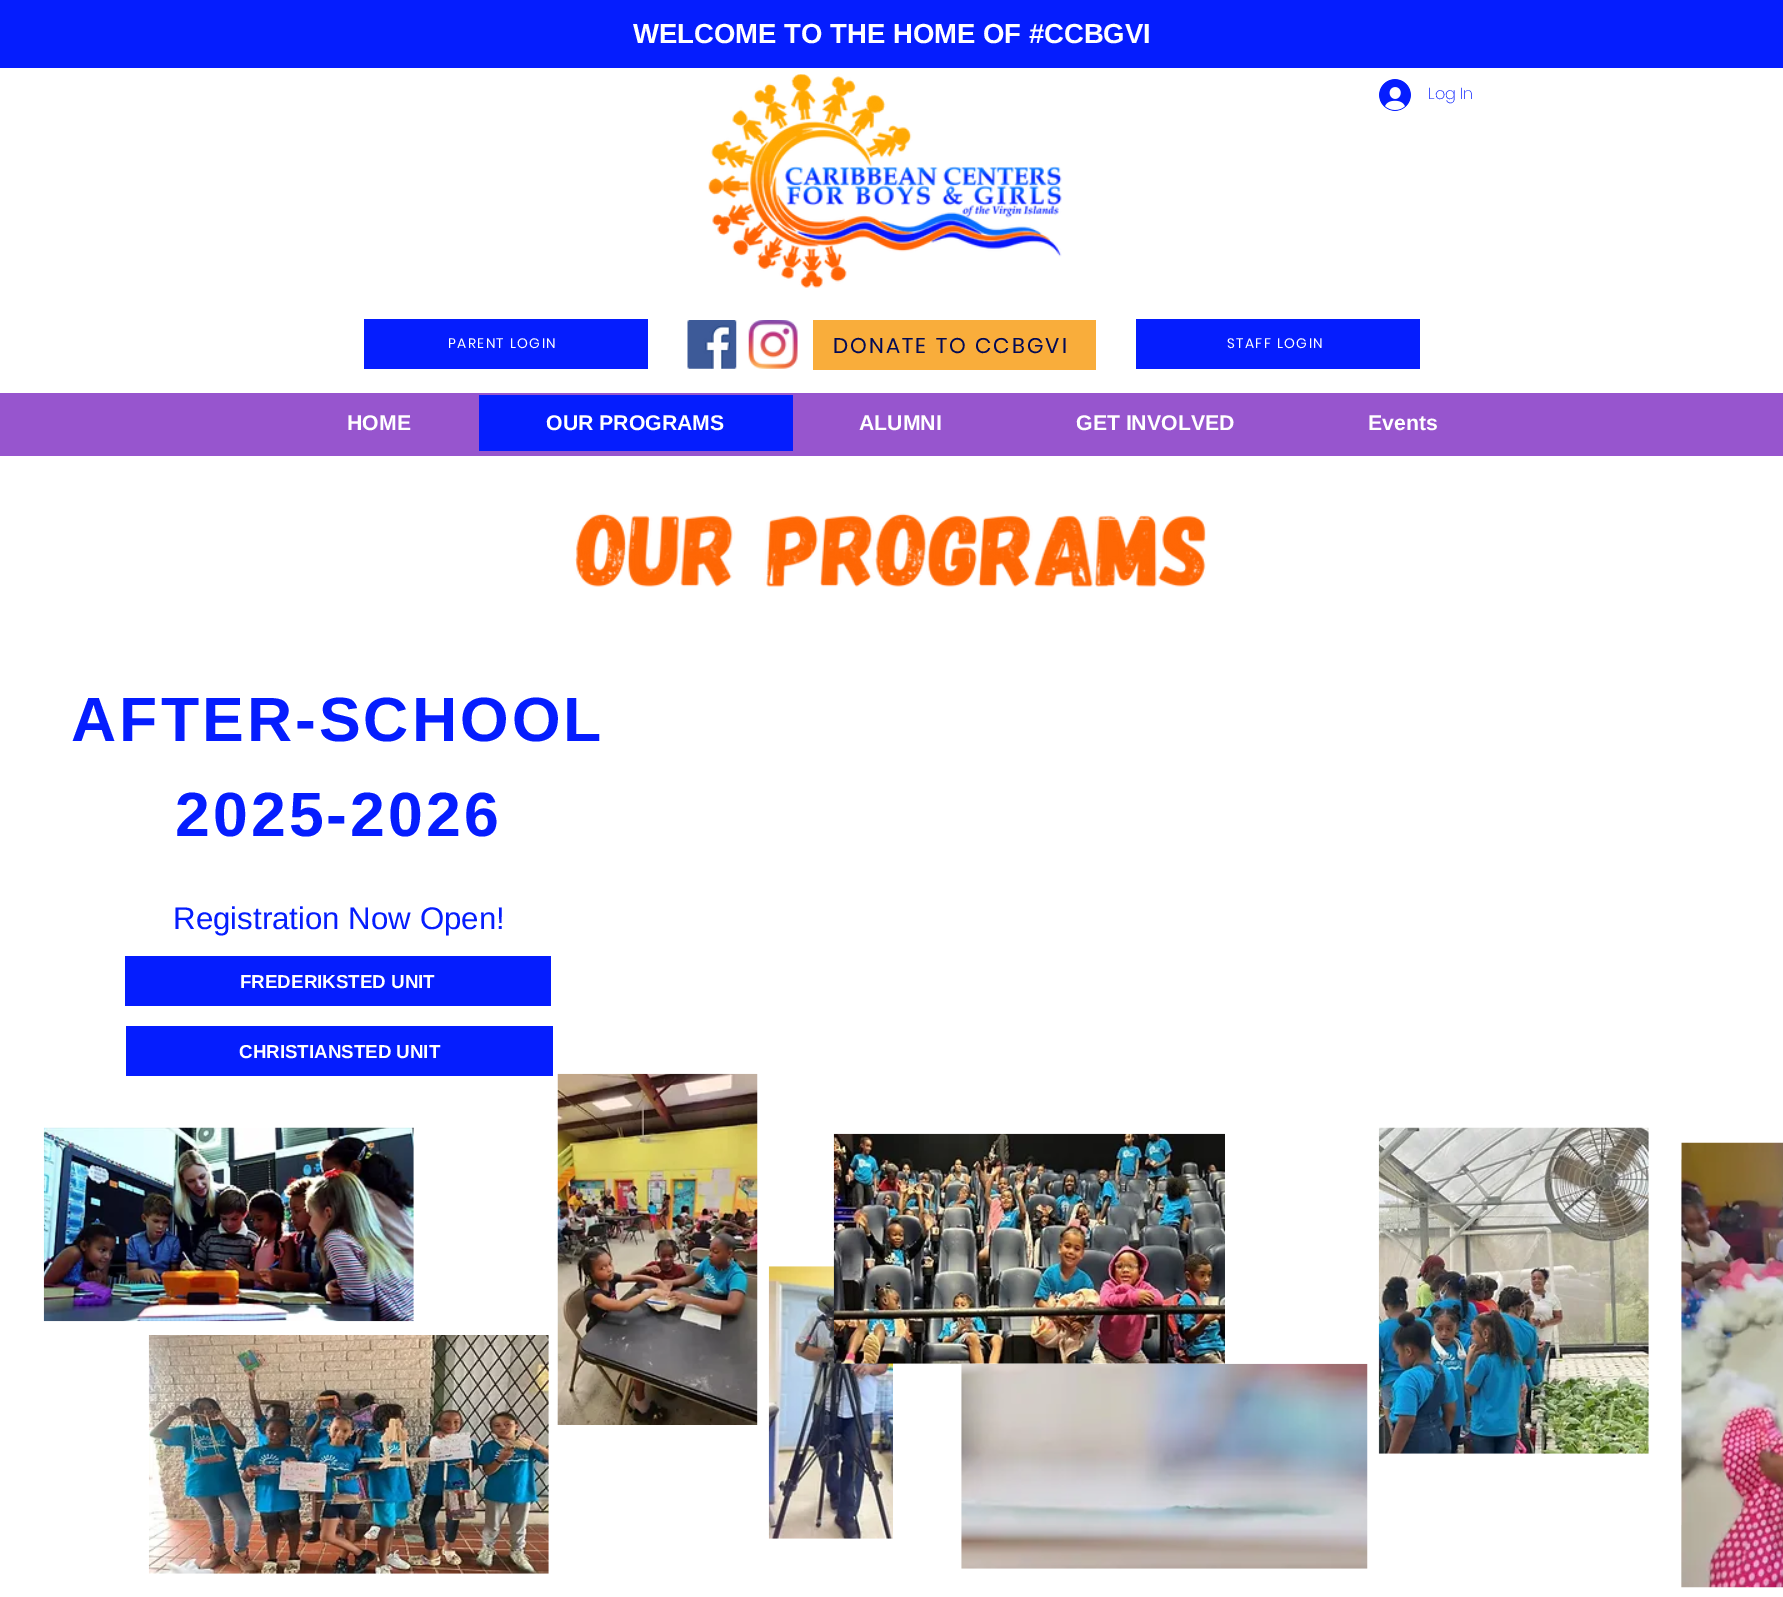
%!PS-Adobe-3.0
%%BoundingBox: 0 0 1783 1597
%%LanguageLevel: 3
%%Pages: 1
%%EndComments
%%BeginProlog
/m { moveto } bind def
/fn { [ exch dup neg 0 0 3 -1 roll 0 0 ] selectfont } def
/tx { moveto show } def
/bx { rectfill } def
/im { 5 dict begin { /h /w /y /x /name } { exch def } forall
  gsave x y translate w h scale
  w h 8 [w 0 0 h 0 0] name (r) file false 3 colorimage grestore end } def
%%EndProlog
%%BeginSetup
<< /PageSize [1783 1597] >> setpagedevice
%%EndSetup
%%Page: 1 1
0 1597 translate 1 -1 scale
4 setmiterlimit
1 setgray
0 0 1783 1597 bx
0.02 0.114 0.996 setrgbcolor
0 0 1783 68 bx
/LiberationSans-Bold 27.5 fn
1 setgray
(WELCOME TO THE HOME OF #CCBGVI) 633 43 tx
(image0.raw) 708 74 354 214 im
(image1.raw) 1379 79 32 32 im
/Poppins-ExtraLight 16 fn
0.02 0.114 0.996 setrgbcolor
(Log In) 1428 99 tx
364 319 284 50 bx
/Poppins-Regular 13.75 fn
1 setgray
448 348 m 1.4 0 (PARENT LOGIN) ashow
(image2.raw) 687 320 50 49 im
(image3.raw) 748 320 50 49 im
0.976 0.678 0.231 setrgbcolor
813 320 283 50 bx
/Poppins-Regular 21.25 fn
0.008 0.039 0.333 setrgbcolor
833 353 m 2.1 0 (DONATE TO CCBGVI) ashow
0.02 0.114 0.996 setrgbcolor
1136 319 284 50 bx
/Poppins-Regular 13.75 fn
1 setgray
1227 348 m 1.4 0 (STAFF LOGIN) ashow
0.592 0.333 0.808 setrgbcolor
0 393 1783 63 bx
/LiberationSans-Bold 21.25 fn
1 setgray
(HOME) 347 430 tx
0.02 0.114 0.996 setrgbcolor
479 395 314 56 bx
1 setgray
(OUR PROGRAMS) 546 430 tx
(ALUMNI) 859 430 tx
(GET INVOLVED) 1076 430 tx
(Events) 1368 430 tx
(image4.raw) 575 513 631 74 im
/LiberationSans-Bold 62.5 fn
0.02 0.114 0.996 setrgbcolor
71 741 m 3.1 0 (AFTER-SCHOOL) ashow
175 836 m 3.1 0 (2025-2026) ashow
/LiberationSans-Regular 31.25 fn
(Registration Now Open!) 173 929 tx
125 956 426 50 bx
/LiberationSans-Bold 18.75 fn
1 setgray
(FREDERIKSTED UNIT) 240 988 tx
0.02 0.114 0.996 setrgbcolor
126 1026 427 50 bx
1 setgray
(CHRISTIANSTED UNIT) 239 1058 tx
(image5.raw) 43 1127 371 195 im
(image6.raw) 557 1073 201 352 im
(image7.raw) 148 1335 401 239 im
(image8.raw) 768 1266 125 273 im
(image9.raw) 833 1133 392 231 im
(image10.raw) 1378 1127 271 327 im
(image11.raw) 1681 1142 102 446 im
(image12.raw) 961 1363 407 206 im
showpage
%%EOF
